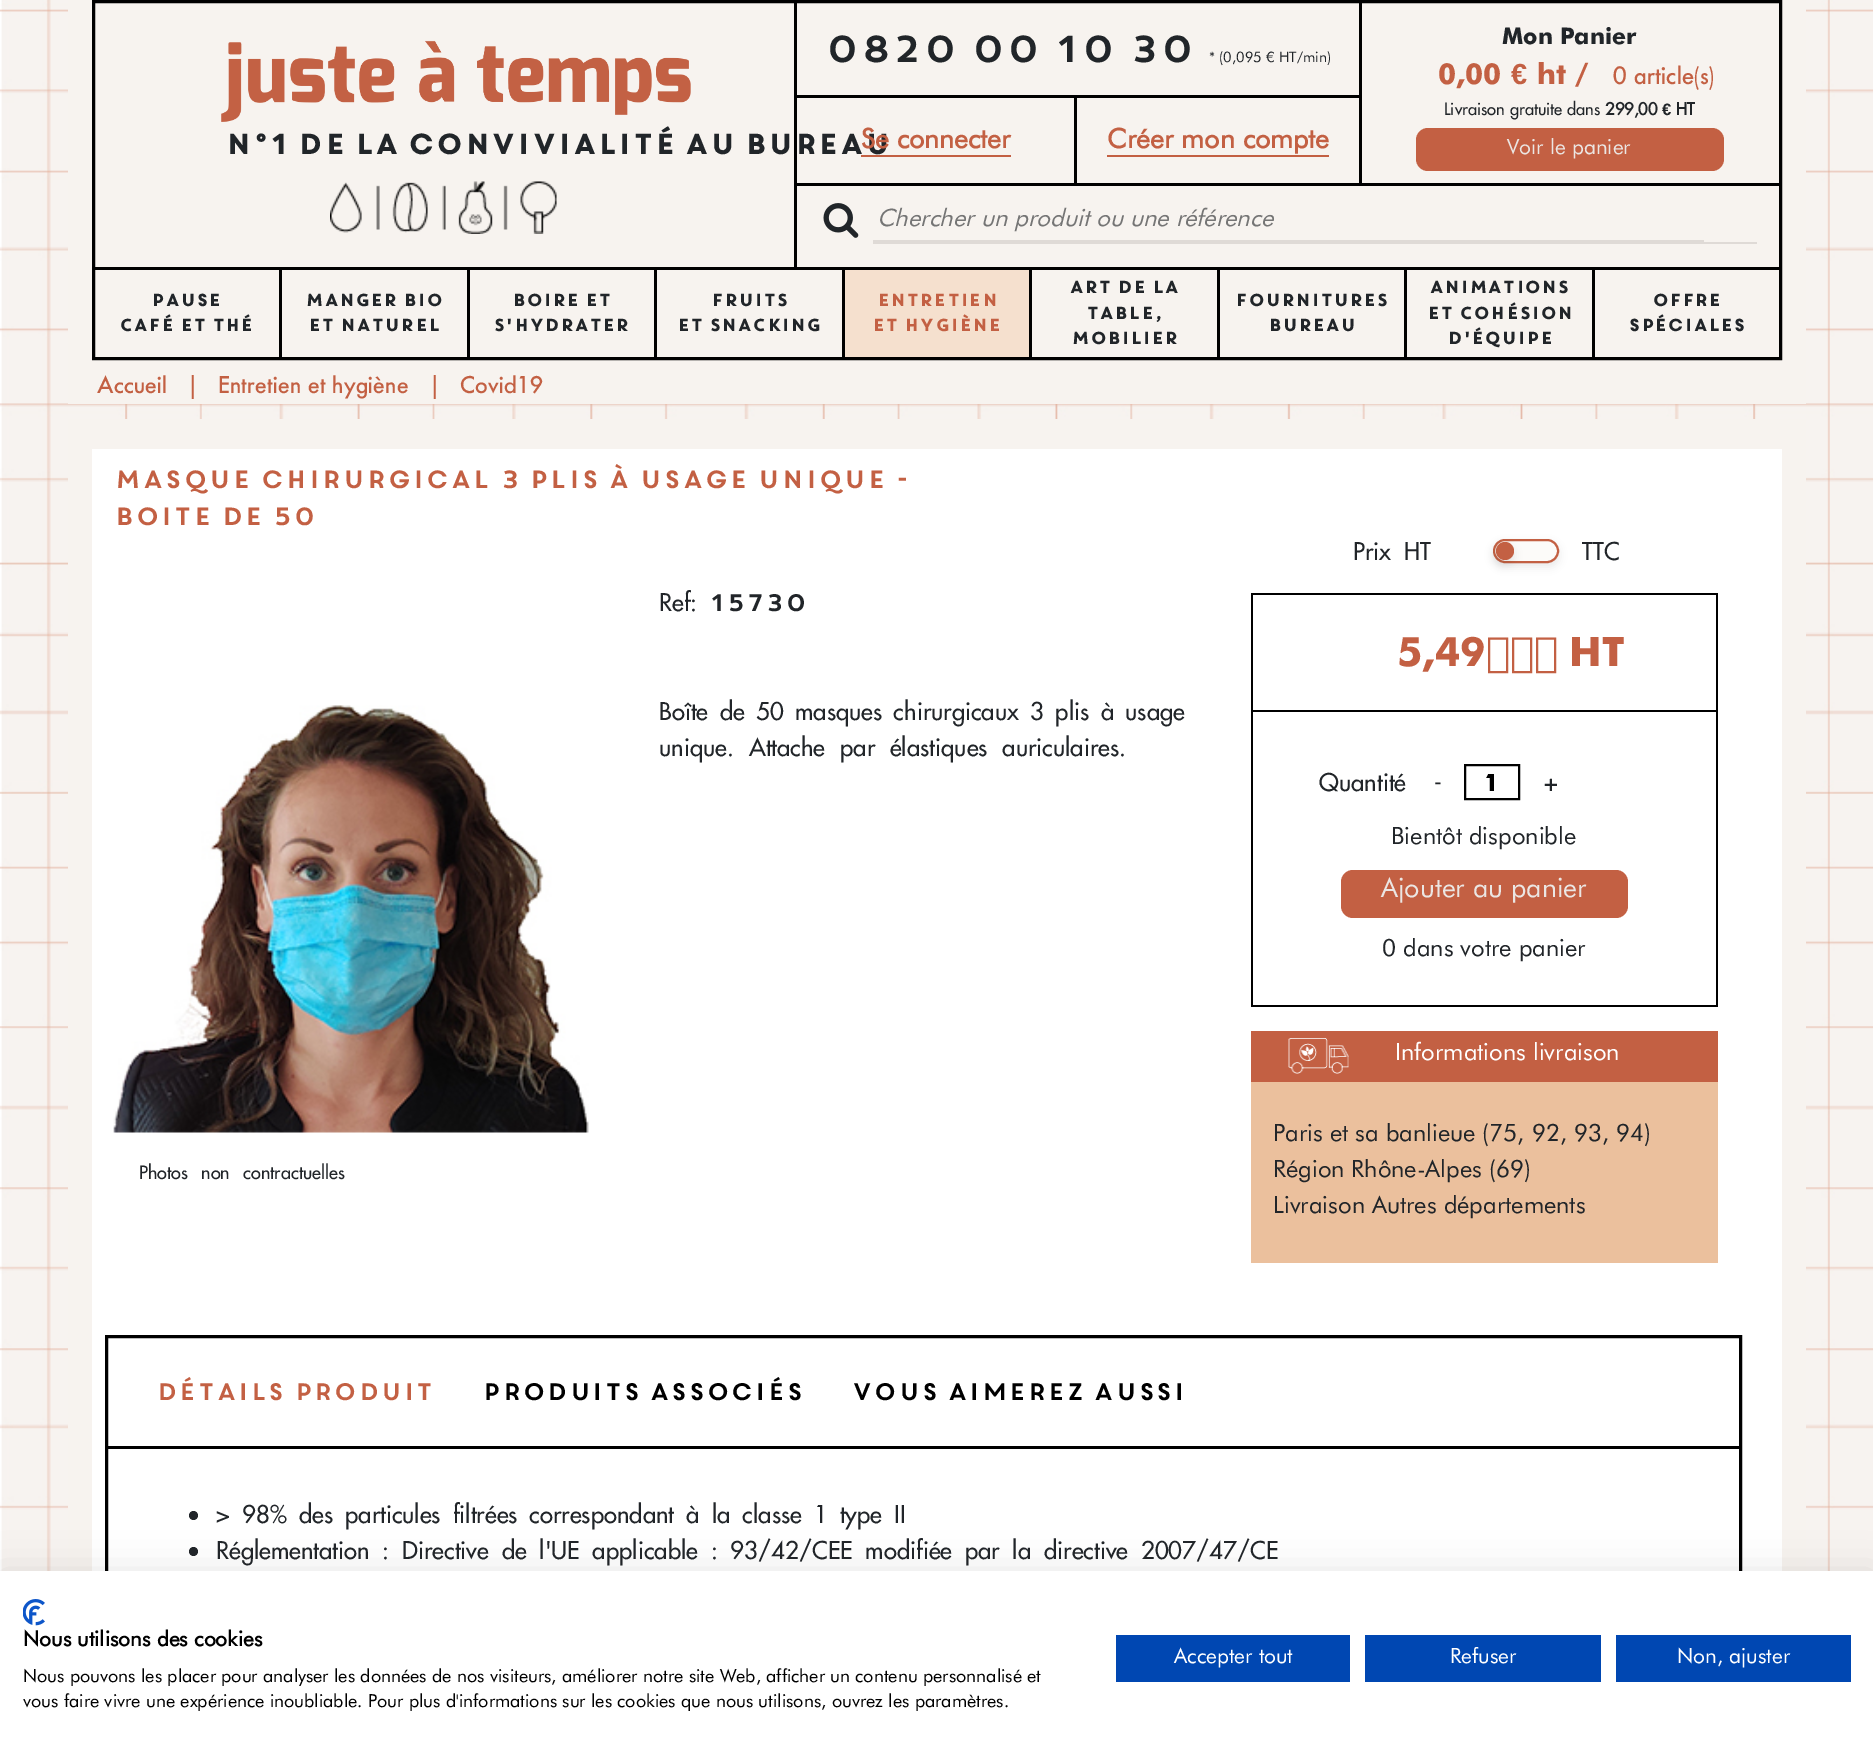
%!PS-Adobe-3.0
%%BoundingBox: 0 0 1873 1756
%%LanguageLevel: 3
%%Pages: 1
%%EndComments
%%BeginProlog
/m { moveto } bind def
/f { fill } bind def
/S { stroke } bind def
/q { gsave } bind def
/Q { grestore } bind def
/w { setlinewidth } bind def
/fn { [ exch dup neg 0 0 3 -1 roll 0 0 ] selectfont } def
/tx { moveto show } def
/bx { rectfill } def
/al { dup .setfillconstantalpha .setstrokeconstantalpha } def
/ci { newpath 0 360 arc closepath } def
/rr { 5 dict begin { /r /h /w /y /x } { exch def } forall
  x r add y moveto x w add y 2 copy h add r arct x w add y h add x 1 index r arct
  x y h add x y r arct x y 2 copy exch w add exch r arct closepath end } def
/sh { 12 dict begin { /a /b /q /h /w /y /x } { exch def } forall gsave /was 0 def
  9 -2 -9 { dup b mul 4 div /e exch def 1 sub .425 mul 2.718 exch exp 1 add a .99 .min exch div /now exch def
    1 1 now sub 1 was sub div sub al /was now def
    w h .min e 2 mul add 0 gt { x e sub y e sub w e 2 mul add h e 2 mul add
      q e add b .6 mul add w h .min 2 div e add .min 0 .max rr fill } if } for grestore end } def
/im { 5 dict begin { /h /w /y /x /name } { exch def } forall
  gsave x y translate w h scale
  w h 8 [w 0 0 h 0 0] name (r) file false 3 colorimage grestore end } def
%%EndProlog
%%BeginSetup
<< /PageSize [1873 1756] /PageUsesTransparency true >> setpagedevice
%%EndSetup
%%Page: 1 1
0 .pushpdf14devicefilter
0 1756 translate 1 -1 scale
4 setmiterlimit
1 setgray
0 0 1873 1756 bx
(image0.raw) 0 0 1873 1571 im
0.969 0.953 0.937 setrgbcolor
68 0 1738 404 bx
0 setgray
3 w
93.5 1.5 1687 357 rectstroke
794 3 3 264 bx
(image1.raw) 221 40 470 82 im
/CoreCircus-Bold 27.9 fn
0.129 0.145 0.161 setrgbcolor
225 154 m -1.5 0 32 (N°1 de la convivialité au bureau) widthshow
(image2.raw) 330 181 227 53 im
0 setgray
797 183 982 3 bx
1359 3 3 180 bx
797 95 562 3 bx
/CoreCircus-Regular 37.5 fn
0.129 0.145 0.161 setrgbcolor
(0820 00 10 30) 825 62 tx
/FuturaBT-Regular 14.5 fn
(* \(0,095 € HT/min\)) 1209 62 tx
0 setgray
1074 98 3 87 bx
/FuturaBT-Bold 27 fn
0.765 0.376 0.263 setrgbcolor
(Se connecter) 861 148 tx
861 155 150 2 bx
(Créer mon compte) 1107 148 tx
1107 155 222 2 bx
/Futura-Bold 23 fn
0.129 0.145 0.161 setrgbcolor
(Mon Panier) 1502 44 tx
/Futura-Bold 29 fn
0.765 0.376 0.263 setrgbcolor
(0,00) 1438 84 tx
/LiberationSans-Bold 29 fn
(€) 1511 84 tx
/Futura-Bold 29 fn
(ht /) 1537 84 tx
/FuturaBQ-Medium 25 fn
(0 article\(s\)) 1613 84 tx
/Futura-Medium 16.5 fn
0.129 0.145 0.161 setrgbcolor
(Livraison gratuite dans) 1444 115 tx
/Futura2-Bold 16.5 fn
(299,00) 1605 115 tx
/LiberationSans-Bold 16.5 fn
(€) 1662 115 tx
/Futura2-Bold 16.5 fn
(HT) 1676 115 tx
0.765 0.376 0.263 setrgbcolor
1416 128 308 43 12 rr f
/FuturaBT-Regular 21 fn
0.922 0.902 0.89 setrgbcolor
(Voir le panier) 1507 154 tx
(image3.raw) 823 203 36 35 im
0.875 0.855 0.839 setrgbcolor
873 242 884 2 bx
873 240 831 2 bx
/FuturaBT-Italic 24 fn
0.459 setgray
(Chercher un produit ou une référence) 877 226 tx
0 setgray
95 267 1684 3 bx
279 270 3 87 bx
/CoreCircus-Bold 16.75 fn
0.129 0.145 0.161 setrgbcolor
(Pause) 151 306 tx
(Café et Thé) 119 331 tx
0 setgray
467 270 3 87 bx
0.129 0.145 0.161 setrgbcolor
(MANGER BIO) 305 306 tx
(ET NATUREL) 308 331 tx
0 setgray
654 270 3 87 bx
0.129 0.145 0.161 setrgbcolor
(BOIRE ET) 512 306 tx
(S'HYDRATER) 493 331 tx
0 setgray
842 270 3 87 bx
0.129 0.145 0.161 setrgbcolor
(FRUITS) 711 306 tx
(ET SNACKING) 677 331 tx
0.961 0.878 0.808 setrgbcolor
845 270 184 87 bx
0 setgray
1029 270 3 87 bx
0.765 0.376 0.263 setrgbcolor
(ENTRETIEN) 877 306 tx
(ET HYGIÈNE) 872 331 tx
0 setgray
1217 270 3 87 bx
0.129 0.145 0.161 setrgbcolor
(ART DE LA) 1069 293 tx
(TABLE,) 1086 319 tx
(MOBILIER) 1071 344 tx
0 setgray
1404 270 3 87 bx
0.129 0.145 0.161 setrgbcolor
(FOURNITURES) 1235 306 tx
(BUREAU) 1268 331 tx
0 setgray
1592 270 3 87 bx
0.129 0.145 0.161 setrgbcolor
(ANIMATIONS) 1429 293 tx
(ET COHÉSION) 1427 319 tx
(D'ÉQUIPE) 1447 344 tx
(Offre) 1652 306 tx
(spéciales) 1628 331 tx
/FuturaBQ-Medium 24 fn
0.765 0.376 0.263 setrgbcolor
(Accueil) 97 393 tx
(|) 190 393 tx
(Entretien et hygiène) 218 393 tx
(|) 432 393 tx
(Covid19) 460 393 tx
0.969 0.953 0.937 setrgbcolor
68 419 1738 1152 bx
1 setgray
92 449 1690 1122 bx
/CoreCircus-Regular 24.9 fn
0.765 0.376 0.263 setrgbcolor
(Masque chirurgical 3 plis à usage unique -) 114 488 tx
(boite de 50) 114 525 tx
(image4.raw) 113 705 476 428 im
/Futura-Medium 18 fn
0.129 0.145 0.161 setrgbcolor
139 1179 m 8 0 32 (Photos non contractuelles) widthshow
/Futura-Medium 23.9 fn
(Ref:) 659 611 tx
/CoreCircus-Regular 23.9 fn
(15730) 709 611 tx
/Futura-Medium 23.9 fn
659 720 m 4.5 0 32 (Boîte de 50 masques chirurgicaux 3 plis à usage) widthshow
659 756 m 8 0 32 (unique. Attache par élastiques auriculaires.) widthshow
1353 560 m 6 0 32 (Prix HT) widthshow
0 setgray
1493 543 66 24 12 4 0.08 sh
0.988 0.984 0.976 setrgbcolor
1494 540 64 22 11 rr q f Q
0.765 0.376 0.263 setrgbcolor
2 w
S
0 setgray
1496 546 18 18 9 4 0.08 sh
0.765 0.376 0.263 setrgbcolor
1505 551 9 ci f
0.129 0.145 0.161 setrgbcolor
(TTC) 1582 560 tx
0 setgray
1251 593 467 2 bx
1716 593 2 414 bx
1251 593 2 148 bx
1253 710 463 2 bx
/Futura-Bold 40.5 fn
0.765 0.376 0.263 setrgbcolor
1397 666 m -2 0 32 (5,49€ HT) widthshow
0 setgray
1251 1005 467 2 bx
1251 741 2 266 bx
/Futura-Medium 23.9 fn
0.129 0.145 0.161 setrgbcolor
(Quantité) 1319 791 tx
(-) 1434 791 tx
0 setgray
1465 765 54 34 rectstroke
/Futura-Bold 23.9 fn
(1) 1484 791 tx
/Futura-Medium 23.9 fn
0.129 0.145 0.161 setrgbcolor
(+) 1544 791 tx
/FuturaBT-Regular 23.9 fn
(Bientôt disponible) 1391 844 tx
0.765 0.376 0.263 setrgbcolor
1341 870 287 48 12 rr f
/FuturaBT-Regular 27 fn
0.922 0.902 0.89 setrgbcolor
(Ajouter au panier) 1381 897 tx
/FuturaBT-Regular 23.9 fn
0.129 0.145 0.161 setrgbcolor
(0 dans votre panier) 1382 956 tx
0.765 0.376 0.263 setrgbcolor
1251 1031 467 51 bx
(image5.raw) 1288 1038 61 36 im
1 setgray
(Informations livraison) 1395 1060 tx
0.922 0.753 0.616 setrgbcolor
1251 1082 467 181 bx
0.129 0.145 0.161 setrgbcolor
(Paris et sa banlieue \(75, 92, 93, 94\)) 1273 1141 tx
(Région Rhône-Alpes \(69\)) 1273 1177 tx
(Livraison Autres départements) 1273 1213 tx
0 setgray
3 w
106.5 1336.5 1634 329 rectstroke
108 1446 1631 3 bx
/CoreCircus-Regular 23.9 fn
0.765 0.376 0.263 setrgbcolor
(Détails produit) 156 1400 tx
0 setgray
(Produits associés) 482 1400 tx
(Vous aimerez aussi) 851 1400 tx
0.129 0.145 0.161 setrgbcolor
193.5 1515.5 4.5 ci f
/Futura-Medium 23.9 fn
216 1523 m 5.25 0 32 (> 98% des particules filtrées correspondant à la classe 1 type II) widthshow
193.5 1551.5 4.5 ci f
216 1559 m 5.9 0 32 (Réglementation : Directive de l'UE applicable : 93/42/CEE modifiée par la directive 2007/47/CE) widthshow
0 setgray
0 1571 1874 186 0 18 0.1 sh
1 setgray
0 1571 1873 185 bx
(image6.raw) 23 1599 22 27 im
/FuturaBT-Bold 21 fn
0 setgray
(Nous utilisons des cookies) 23 1646 tx
/FuturaBT-Regular 18 fn
(Nous pouvons les placer pour analyser les données de nos visiteurs, améliorer notre site Web, afficher un contenu personnalisé et) 23 1682 tx
(vous faire vivre une expérience inoubliable. Pour plus d'informations sur les cookies que nous utilisons, ouvrez les paramètres.) 23 1707 tx
0 0.278 0.698 setrgbcolor
1116 1635 234 47 bx
/FuturaBT-Regular 21 fn
1 setgray
(Accepter tout) 1174 1663 tx
0 0.278 0.698 setrgbcolor
1365 1635 236 47 bx
1 setgray
(Refuser) 1450 1663 tx
0 0.278 0.698 setrgbcolor
1616 1635 235 47 bx
1 setgray
(Non, ajuster) 1677 1663 tx
.poppdf14devicefilter showpage
%%EOF
